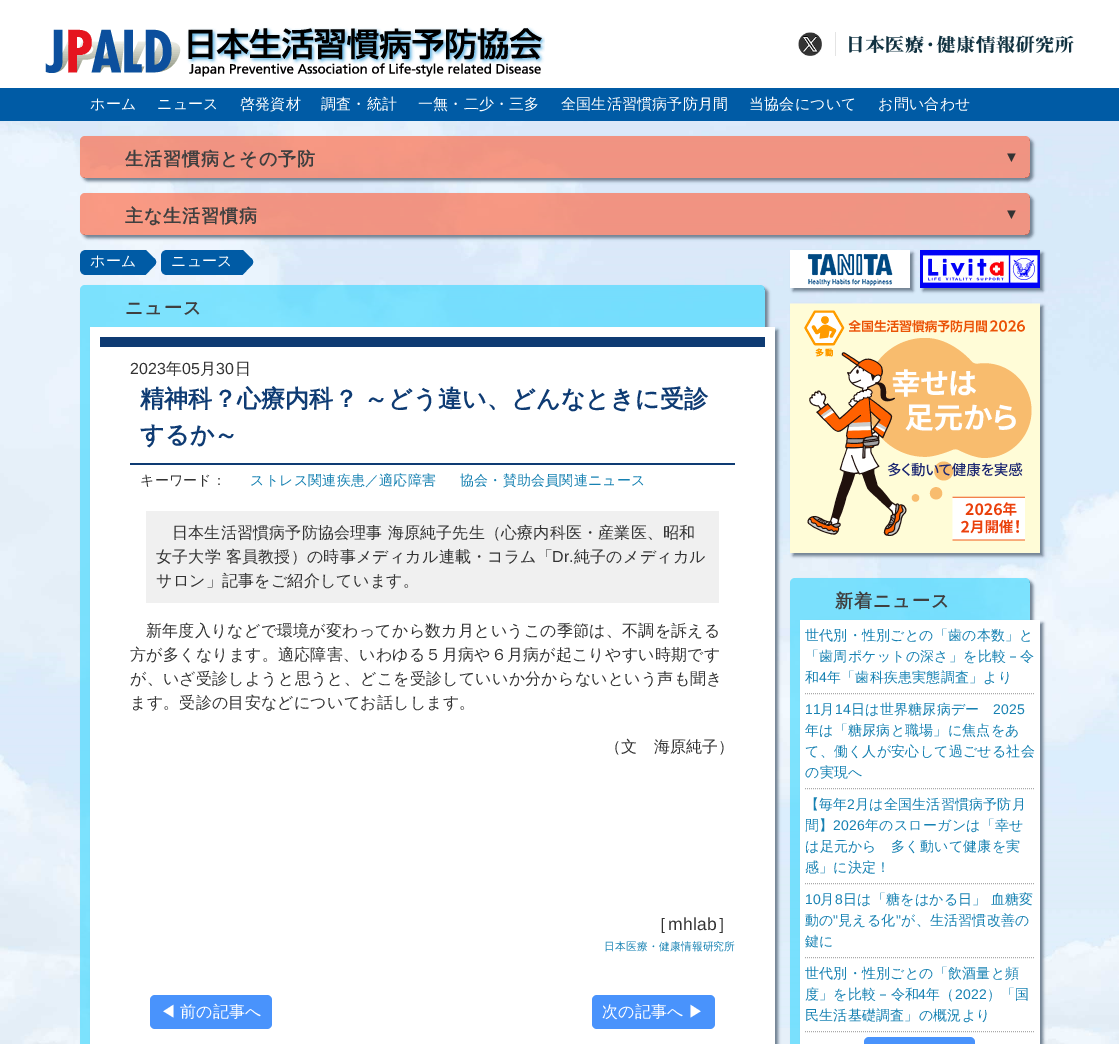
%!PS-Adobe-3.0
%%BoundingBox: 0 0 1119 1044
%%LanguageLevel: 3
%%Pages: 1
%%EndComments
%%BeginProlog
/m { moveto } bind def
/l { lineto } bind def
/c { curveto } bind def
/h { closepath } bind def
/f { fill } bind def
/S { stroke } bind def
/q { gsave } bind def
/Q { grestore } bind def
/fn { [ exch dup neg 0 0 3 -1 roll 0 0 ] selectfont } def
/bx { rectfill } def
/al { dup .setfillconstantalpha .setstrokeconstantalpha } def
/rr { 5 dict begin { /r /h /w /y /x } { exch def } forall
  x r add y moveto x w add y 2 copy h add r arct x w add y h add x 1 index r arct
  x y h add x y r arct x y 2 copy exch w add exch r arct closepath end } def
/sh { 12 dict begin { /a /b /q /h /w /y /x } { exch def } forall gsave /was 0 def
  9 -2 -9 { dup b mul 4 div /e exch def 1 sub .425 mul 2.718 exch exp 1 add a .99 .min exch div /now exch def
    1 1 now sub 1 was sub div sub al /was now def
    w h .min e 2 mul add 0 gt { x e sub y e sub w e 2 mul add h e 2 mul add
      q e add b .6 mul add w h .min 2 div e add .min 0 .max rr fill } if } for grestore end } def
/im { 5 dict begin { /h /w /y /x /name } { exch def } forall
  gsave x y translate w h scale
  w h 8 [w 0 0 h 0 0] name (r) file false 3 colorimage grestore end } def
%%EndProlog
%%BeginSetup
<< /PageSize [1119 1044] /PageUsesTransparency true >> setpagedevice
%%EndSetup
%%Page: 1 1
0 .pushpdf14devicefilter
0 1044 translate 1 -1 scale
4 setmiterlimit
1 setgray
0 0 1119 1044 bx
(image0.raw) 0 121 1119 923 im
(image1.raw) 45 27 500 50 im
(image2.raw) 798 32 24 24 im
0.894 setgray
835 32 1 24 bx
(image3.raw) 849 35 225 18 im
0 0.357 0.647 setrgbcolor
0 88 1119 33 bx
/WenQuanYiZenHei-Medium 15 fn
1 setgray
90 109 m 0.2 0 (ホーム) ashow
157 109 m 0.2 0 (ニュース) ashow
240 109 m 0.2 0 (啓発資材) ashow
321 109 m 0.2 0 (調査・統計) ashow
418 109 m 0.2 0 (一無・二少・三多) ashow
561 109 m 0.2 0 (全国生活習慣病予防月間) ashow
749 109 m 0.2 0 (当協会について) ashow
878 109 m 0.2 0 (お問い合わせ) ashow
q
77 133 m 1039 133 l 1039 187 l 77 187 l h 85 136 m 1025 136 l 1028 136 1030 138 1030 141 c 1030 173 l 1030 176 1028 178 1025 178 c 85 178 l 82 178 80 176 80 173 c 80 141 l 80 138 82 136 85 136 c h eoclip newpath
0.439 0.502 0.565 setrgbcolor
83 139 950 42 5 1.5 1 sh
Q
0.6 al
1 0.357 0.196 setrgbcolor
80 136 950 42 5 rr f
/WenQuanYiZenHei-Bold 18 fn
1 al
0.247 setgray
125 165 m 1 0 (生活習慣病とその予防) ashow
/LiberationSans-Bold 15 fn
0.2 setgray
1004 162 m 0.2 0 (▼) ashow
q
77 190 m 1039 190 l 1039 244 l 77 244 l h 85 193 m 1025 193 l 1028 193 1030 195 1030 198 c 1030 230 l 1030 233 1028 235 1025 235 c 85 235 l 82 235 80 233 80 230 c 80 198 l 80 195 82 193 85 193 c h eoclip newpath
0.439 0.502 0.565 setrgbcolor
83 196 950 42 5 1.5 1 sh
Q
0.6 al
1 0.357 0.196 setrgbcolor
80 193 950 42 5 rr f
/WenQuanYiZenHei-Bold 18 fn
1 al
0.247 setgray
125 222 m 1 0 (主な生活習慣病) ashow
/LiberationSans-Bold 15 fn
0.2 setgray
1004 219 m 0.2 0 (▼) ashow
0 0.357 0.647 setrgbcolor
86 250 m 136 250 l 136 275 l 86 275 l 82.5 275 80 272.5 80 269 c 80 256 l 80 252.5 82.5 250 86 250 c h f
q
80 250 695 25 rectclip
136 240 m 154 258 l 157 260 157 264 154 266 c 136 285 l 134 287 130 287 128 285 c 110 266 l 107 264 107 260 110 258 c 128 240 l 130 238 134 238 136 240 c h f
Q
/WenQuanYiZenHei-Medium 15 fn
1 setgray
90 266 m 0.2 0 (ホーム) ashow
0 0.357 0.647 setrgbcolor
167 250 m 233 250 l 233 275 l 167 275 l 163.5 275 161 272.5 161 269 c 161 256 l 161 252.5 163.5 250 167 250 c h f
q
80 250 695 25 rectclip
233 240 m 251 258 l 254 260 254 264 251 266 c 233 285 l 231 287 227 287 225 285 c 207 266 l 204 264 204 260 207 258 c 225 240 l 227 238 231 238 233 240 c h f
Q
1 setgray
171 266 m 0.2 0 (ニュース) ashow
q
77 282 m 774 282 l 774 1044 l 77 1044 l h 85 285 m 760 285 l 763 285 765 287 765 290 c 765 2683 l 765 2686 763 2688 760 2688 c 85 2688 l 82 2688 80 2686 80 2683 c 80 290 l 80 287 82 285 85 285 c h eoclip newpath
0.439 0.502 0.565 setrgbcolor
83 288 685 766 5 1.5 1 sh
Q
0.6 al
0.196 0.839 1 setrgbcolor
80 285 685 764 5 rr f
/WenQuanYiZenHei-Bold 18 fn
1 al
0.247 setgray
125 314 m 1 0 (ニュース) ashow
0.439 0.502 0.565 setrgbcolor
93 330 685 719 0 1.5 1 sh
1 setgray
90 327 685 717 bx
0.055 0.231 0.451 setrgbcolor
100 337 665 10 bx
/LiberationSans-Regular 16 fn
0.2 setgray
130 374 m 0.2 0 (2023) ashow
/WenQuanYiZenHei-Medium 16 fn
166 374 m 0.2 0 (年) ashow
/LiberationSans-Regular 16 fn
182 374 m 0.2 0 (05) ashow
/WenQuanYiZenHei-Medium 16 fn
200 374 m 0.2 0 (月) ashow
/LiberationSans-Regular 16 fn
216 374 m 0.2 0 (30) ashow
/WenQuanYiZenHei-Medium 16 fn
235 374 m 0.2 0 (日) ashow
0.055 0.231 0.451 setrgbcolor
130 463 605 2 bx
/WenQuanYiZenHei-Bold 24 fn
140 407 m -1 0 32 0.2 0 (精神科？心療内科？ ～どう違い、どんなときに受診) awidthshow
140 443 m 0.2 0 (するか～) ashow
/WenQuanYiZenHei-Medium 14 fn
0.2 setgray
140 485 m 0.2 0 (キーワード：) ashow
0.086 0.506 0.698 setrgbcolor
250 485 m 0.2 0 (ストレス関連疾患／適応障害) ashow
460 485 m 0.2 0 (協会・賛助会員関連ニュース) ashow
0.941 setgray
146 511 573 92 bx
/WenQuanYiZenHei-Medium 16 fn
0.2 setgray
172 538 m 0.2 0 (日本生活習慣病予防協会理事 海原純子先生（心療内科医・産業医、昭和) ashow
156 562 m 0.2 0 (女子大学 客員教授）の時事メディカル連載・コラム「) ashow
/LiberationSans-Regular 16 fn
552 562 m 0.2 0 (Dr.) ashow
/WenQuanYiZenHei-Medium 16 fn
574 562 m 0.2 0 (純子のメディカル) ashow
156 586 m 0.2 0 (サロン」記事をご紹介しています。) ashow
146 636 m 0.2 0 (新年度入りなどで環境が変わってから数カ月というこの季節は、不調を訴える) ashow
130 660 m 0.2 0 (方が多くなります。適応障害、いわゆる５月病や６月病が起こりやすい時期です) ashow
130 684 m 0.2 0 (が、いざ受診しようと思うと、どこを受診していいか分からないという声も聞き) ashow
130 708 m 0.2 0 (ます。受診の目安などについてお話しします。) ashow
605 752 m 0.2 0 (（文　海原純子）) ashow
/WenQuanYiZenHei-Medium 17.5 fn
650 930 m 0.2 0 (［) ashow
/LiberationSans-Regular 17.5 fn
668 930 m 0.2 0 (mhlab) ashow
/WenQuanYiZenHei-Medium 17.5 fn
717 930 m 0.2 0 (］) ashow
/WenQuanYiZenHei-Medium 10.75 fn
0.086 0.506 0.698 setrgbcolor
604 950 m 0.2 0 (日本医療・健康情報研究所) ashow
0.286 0.576 0.988 setrgbcolor
150 995 122 34 5 rr f
/WenQuanYiZenHei-Medium 16 fn
1 setgray
160 1017 m 0.2 0 (◀) ashow
180 1017 m 0.2 0 (前の記事へ) ashow
0.286 0.576 0.988 setrgbcolor
592 995 123 34 5 rr f
1 setgray
602 1017 m 0.2 0 (次の記事へ) ashow
688 1017 m 0.2 0 (▶) ashow
0.439 0.502 0.565 setrgbcolor
793 253 120 38 0 1.5 1 sh
(image4.raw) 790 250 120 38 im
923 253 120 38 0 1.5 1 sh
(image5.raw) 920 250 120 38 im
793 306 250 250 0 1.5 1 sh
(image6.raw) 790 303 250 250 im
q
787 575 m 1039 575 l 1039 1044 l 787 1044 l h 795 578 m 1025 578 l 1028 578 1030 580 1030 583 c 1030 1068 l 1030 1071 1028 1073 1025 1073 c 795 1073 l 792 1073 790 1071 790 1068 c 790 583 l 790 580 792 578 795 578 c h eoclip newpath
793 581 240 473 5 1.5 1 sh
Q
0.6 al
0.196 0.839 1 setrgbcolor
790 578 240 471 5 rr f
/WenQuanYiZenHei-Bold 18 fn
1 al
0.247 setgray
835 607 m 1 0 (新着ニュース) ashow
0.439 0.502 0.565 setrgbcolor
803 623 240 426 0 1.5 1 sh
1 setgray
800 620 240 424 bx
0.663 setgray
[1 1] 0 setdash
805 693.5 m 1035 693.5 l S
/WenQuanYiZenHei-Medium 14 fn
0.086 0.506 0.698 setrgbcolor
805 640 m 0.2 0 (世代別・性別ごとの「歯の本数」と) ashow
805 661 m 0.2 0 (「歯周ポケットの深さ」を比較－令) ashow
805 682 m 0.2 0 (和) ashow
/LiberationSans-Regular 14 fn
819 682 m 0.2 0 (4) ashow
/WenQuanYiZenHei-Medium 14 fn
827 682 m 0.2 0 (年「歯科疾患実態調査」より) ashow
0.663 setgray
805 788.5 m 1035 788.5 l S
/LiberationSans-Regular 14 fn
0.086 0.506 0.698 setrgbcolor
805 714 m 0.2 0 (11) ashow
/WenQuanYiZenHei-Medium 14 fn
820 714 m 0.2 0 (月) ashow
/LiberationSans-Regular 14 fn
835 714 m 0.2 0 (14) ashow
/WenQuanYiZenHei-Medium 14 fn
851 714 m 0.2 0 (日は世界糖尿病デー) ashow
/LiberationSans-Regular 14 fn
993 714 m 0.2 0 (2025) ashow
/WenQuanYiZenHei-Medium 14 fn
805 735 m 0.2 0 (年は「糖尿病と職場」に焦点をあ) ashow
805 756 m 0.2 0 (て、働く人が安心して過ごせる社会) ashow
805 777 m 0.2 0 (の実現へ) ashow
0.663 setgray
805 883.5 m 1035 883.5 l S
0.086 0.506 0.698 setrgbcolor
805 809 m 0.2 0 (【毎年) ashow
/LiberationSans-Regular 14 fn
847 809 m 0.2 0 (2) ashow
/WenQuanYiZenHei-Medium 14 fn
855 809 m 0.2 0 (月は全国生活習慣病予防月) ashow
805 830 m 0.2 0 (間】) ashow
/LiberationSans-Regular 14 fn
833 830 m 0.2 0 (2026) ashow
/WenQuanYiZenHei-Medium 14 fn
865 830 m 0.2 0 (年のスローガンは「幸せ) ashow
805 851 m 0.2 0 (は足元から　多く動いて健康を実) ashow
805 872 m 0.2 0 (感」に決定！) ashow
0.663 setgray
805 957.5 m 1035 957.5 l S
/LiberationSans-Regular 14 fn
0.086 0.506 0.698 setrgbcolor
805 904 m 0.2 0 (10) ashow
/WenQuanYiZenHei-Medium 14 fn
820 904 m 0.2 0 (月) ashow
/LiberationSans-Regular 14 fn
835 904 m 0.2 0 (8) ashow
/WenQuanYiZenHei-Medium 14 fn
843 904 m 0.2 0 (日は「糖をはかる日」 血糖変) ashow
805 925 m 0.2 0 (動の) ashow
/LiberationSans-Regular 14 fn
833 925 m 0.2 0 (") ashow
/WenQuanYiZenHei-Medium 14 fn
838 925 m 0.2 0 (見える化) ashow
/LiberationSans-Regular 14 fn
896 925 m 0.2 0 (") ashow
/WenQuanYiZenHei-Medium 14 fn
901 925 m 0.2 0 (が、生活習慣改善の) ashow
805 946 m 0.2 0 (鍵に) ashow
0.663 setgray
805 1031.5 m 1035 1031.5 l S
0.086 0.506 0.698 setrgbcolor
805 978 m 0.2 0 (世代別・性別ごとの「飲酒量と頻) ashow
805 999 m 0.2 0 (度」を比較－令和) ashow
/LiberationSans-Regular 14 fn
918 999 m 0.2 0 (4) ashow
/WenQuanYiZenHei-Medium 14 fn
926 999 m 0.2 0 (年（) ashow
/LiberationSans-Regular 14 fn
955 999 m 0.2 0 (2022) ashow
/WenQuanYiZenHei-Medium 14 fn
987 999 m 0.2 0 (）「国) ashow
805 1020 m 0.2 0 (民生活基礎調査」の概況より) ashow
0.286 0.576 0.988 setrgbcolor
864 1037 111 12 5 rr f
.poppdf14devicefilter showpage
%%EOF
